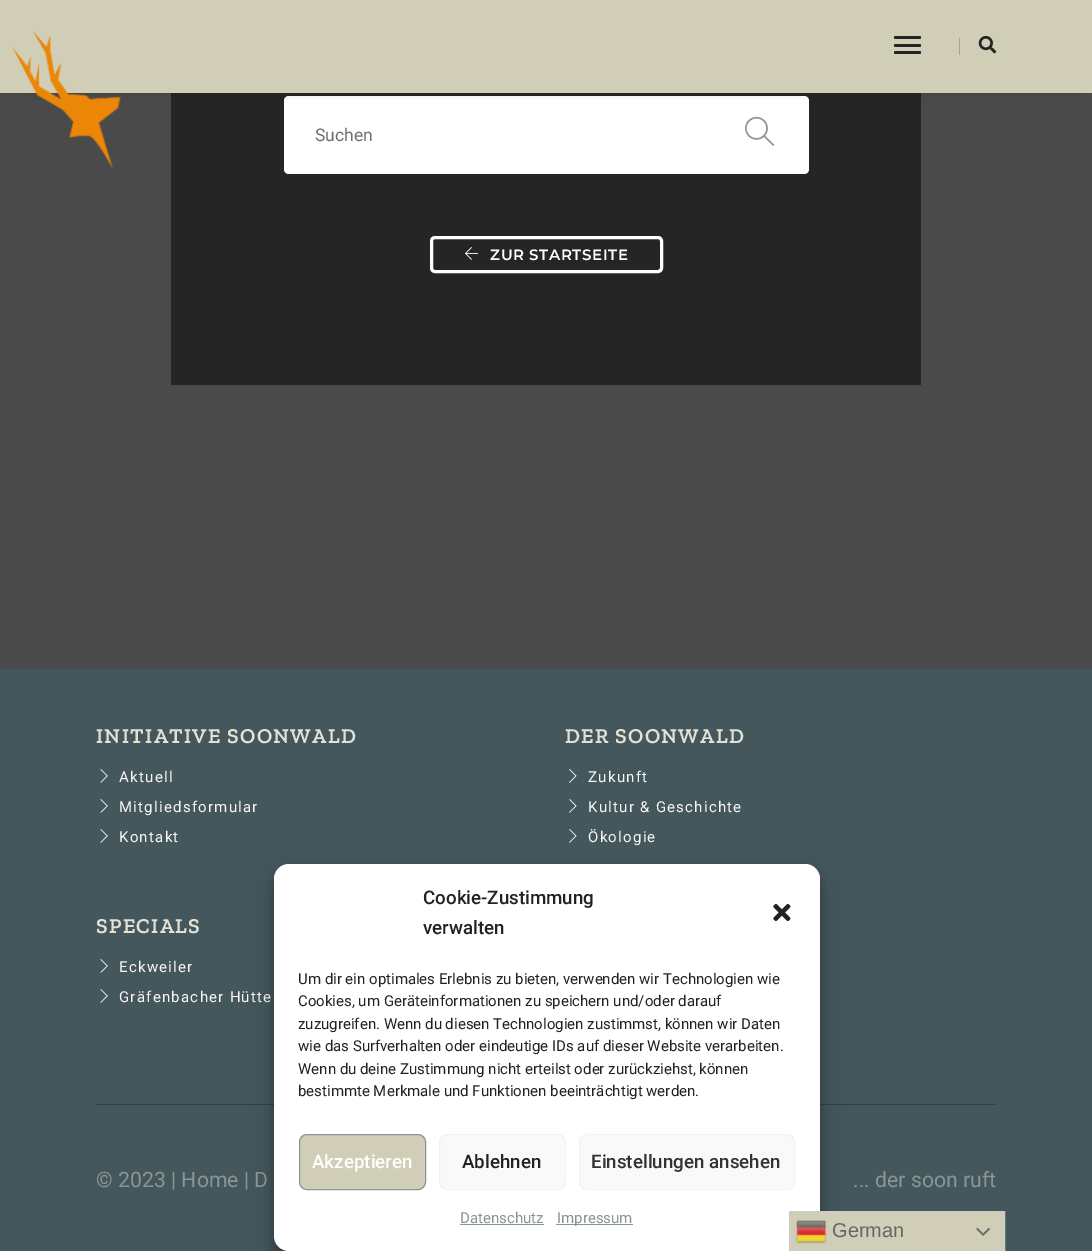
%!PS-Adobe-3.0
%%BoundingBox: 0 0 1092 1251
%%LanguageLevel: 3
%%Pages: 1
%%EndComments
%%BeginProlog
/m { moveto } bind def
/l { lineto } bind def
/c { curveto } bind def
/h { closepath } bind def
/f { fill } bind def
/S { stroke } bind def
/q { gsave } bind def
/Q { grestore } bind def
/w { setlinewidth } bind def
/fn { [ exch dup neg 0 0 3 -1 roll 0 0 ] selectfont } def
/tx { moveto show } def
/bx { rectfill } def
/al { dup .setfillconstantalpha .setstrokeconstantalpha } def
/rr { 5 dict begin { /r /h /w /y /x } { exch def } forall
  x r add y moveto x w add y 2 copy h add r arct x w add y h add x 1 index r arct
  x y h add x y r arct x y 2 copy exch w add exch r arct closepath end } def
/sh { 12 dict begin { /a /b /q /h /w /y /x } { exch def } forall gsave /was 0 def
  9 -2 -9 { dup b mul 4 div /e exch def 1 sub .425 mul 2.718 exch exp 1 add a .99 .min exch div /now exch def
    1 1 now sub 1 was sub div sub al /was now def
    w h .min e 2 mul add 0 gt { x e sub y e sub w e 2 mul add h e 2 mul add
      q e add b .6 mul add w h .min 2 div e add .min 0 .max rr fill } if } for grestore end } def
/im { 5 dict begin { /h /w /y /x /name } { exch def } forall
  gsave x y translate w h scale
  w h 8 [w 0 0 h 0 0] name (r) file false 3 colorimage grestore end } def
%%EndProlog
%%BeginSetup
<< /PageSize [1092 1251] /PageUsesTransparency true >> setpagedevice
%%EndSetup
%%Page: 1 1
0 .pushpdf14devicefilter
0 1251 translate 1 -1 scale
4 setmiterlimit
0.267 0.341 0.365 setrgbcolor
0 0 1092 1251 bx
0.29 setgray
0 93 1092 576 bx
0.145 setgray
171 93 750 292 bx
1 setgray
289 96 m 713 96 l 713 174 l 289 174 l 286 174 284 172 284 169 c 284 101 l 284 98 286 96 289 96 c h f
711 96 m 804 96 l 807 96 809 98 809 101 c 809 169 l 809 172 807 174 804 174 c 711 174 l h f
0 setgray
13 19 1067 67 0 6 0.6 sh
0.816 0.808 0.714 setrgbcolor
0 0 1092 93 bx
(image0.raw) 12 31 110 138 im
0.137 setgray
894 36 27 3 1.5 rr f
894 44 27 3 1.5 rr f
894 51 27 3 1.5 rr f
0.647 0.639 0.569 setrgbcolor
959 38 1 17 bx
(image1.raw) 978 35 19 19 im
/Roboto-Regular 17.5 fn
0.435 setgray
(Suchen) 315 141 tx
(image2.raw) 745 116 30 30 im
1 setgray
3 w
431.5 237.5 230 34 3.5 rr S
(image3.raw) 465 247 13 13 im
/Montserrat-SemiBold 15 fn
490 260 m 0.6 0 (ZUR STARTSEITE) ashow
/ZillaSlab-SemiBold 21.25 fn
0.886 0.882 0.831 setrgbcolor
96 743 m 1.25 0 (INITIATIVE SOONWALD) ashow
(image4.raw) 100 769 8 14 im
/Roboto-Regular 15 fn
0.973 0.969 0.953 setrgbcolor
119 782 m 1.25 0 (Aktuell) ashow
(image4.raw) 100 799 8 14 im
119 812 m 1.25 0 (Mitgliedsformular) ashow
(image4.raw) 100 829 8 14 im
119 842 m 1.25 0 (Kontakt) ashow
/ZillaSlab-SemiBold 21.25 fn
0.886 0.882 0.831 setrgbcolor
565 743 m 1.25 0 (DER SOONWALD) ashow
(image5.raw) 569 769 8 14 im
/Roboto-Regular 15 fn
0.973 0.969 0.953 setrgbcolor
588 782 m 1.25 0 (Zukunft) ashow
(image5.raw) 569 799 8 14 im
588 812 m 1.25 0 (Kultur & Geschichte) ashow
(image5.raw) 569 829 8 14 im
588 842 m 1.25 0 (Ökologie) ashow
/ZillaSlab-SemiBold 21.25 fn
0.886 0.882 0.831 setrgbcolor
96 933 m 1.25 0 (SPECIALS) ashow
(image4.raw) 100 959 8 14 im
/Roboto-Regular 15 fn
0.973 0.969 0.953 setrgbcolor
119 972 m 1.25 0 (Eckweiler) ashow
(image4.raw) 100 989 8 14 im
119 1002 m 1.25 0 (Gräfenbacher Hütte) ashow
0.2 0.255 0.271 setrgbcolor
96 1104 900 1 bx
/Roboto-Regular 21.25 fn
0.545 0.584 0.576 setrgbcolor
(© 2023 | Home | D) 96 1187 tx
(... der soon ruft) 853 1187 tx
0 setgray
274 871 546 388 15 4 0.23 sh
274 876 546 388 15 12.5 0.19 sh
1 setgray
274 864 546 387 15 rr f
/Roboto-Medium 18.75 fn
0.133 setgray
(Cookie-Zustimmung) 423 904 tx
(verwalten) 423 934 tx
(image6.raw) 773 903 18 19 im
/Roboto-Regular 15 fn
(Um dir ein optimales Erlebnis zu bieten, verwenden wir Technologien wie) 298 984 tx
(Cookies, um Geräteinformationen zu speichern und/oder darauf) 298 1006 tx
(zuzugreifen. Wenn du diesen Technologien zustimmst, können wir Daten) 298 1029 tx
(wie das Surfverhalten oder eindeutige IDs auf dieser Website verarbeiten.) 298 1051 tx
(Wenn du deine Zustimmung nicht erteilst oder zurückziehst, können) 298 1074 tx
(bestimmte Merkmale und Funktionen beeinträchtigt werden.) 298 1096 tx
0.816 0.808 0.714 setrgbcolor
299.5 1134.5 126 55 7.5 rr q f Q
0.545 0.584 0.576 setrgbcolor
1 w
S
/Roboto-Medium 18.75 fn
1 setgray
(Akzeptieren) 312 1168 tx
0.976 setgray
439.5 1134.5 126 55 7.5 rr q f Q
0.949 setgray
S
0.133 setgray
(Ablehnen) 462 1168 tx
0.976 setgray
579.5 1134.5 215 55 7.5 rr q f Q
0.949 setgray
S
0.2 setgray
(Einstellungen ansehen) 591 1168 tx
/Roboto-Regular 15 fn
0.545 0.584 0.576 setrgbcolor
(Datenschutz) 460 1223 tx
460 1224 84 1 bx
556 1224 77 1 bx
(Impressum) 557 1223 tx
0.816 0.808 0.714 setrgbcolor
789.5 1211.5 m 1004.5 1211.5 l 1004.5 1250.5 l 789.5 1250.5 l h q f Q
0.8 setgray
S
(image7.raw) 796 1220 31 24 im
/LiberationSans-Regular 20 fn
0.4 setgray
(German) 832 1237 tx
(image8.raw) 976 1227 14 9 im
.poppdf14devicefilter showpage
%%EOF
